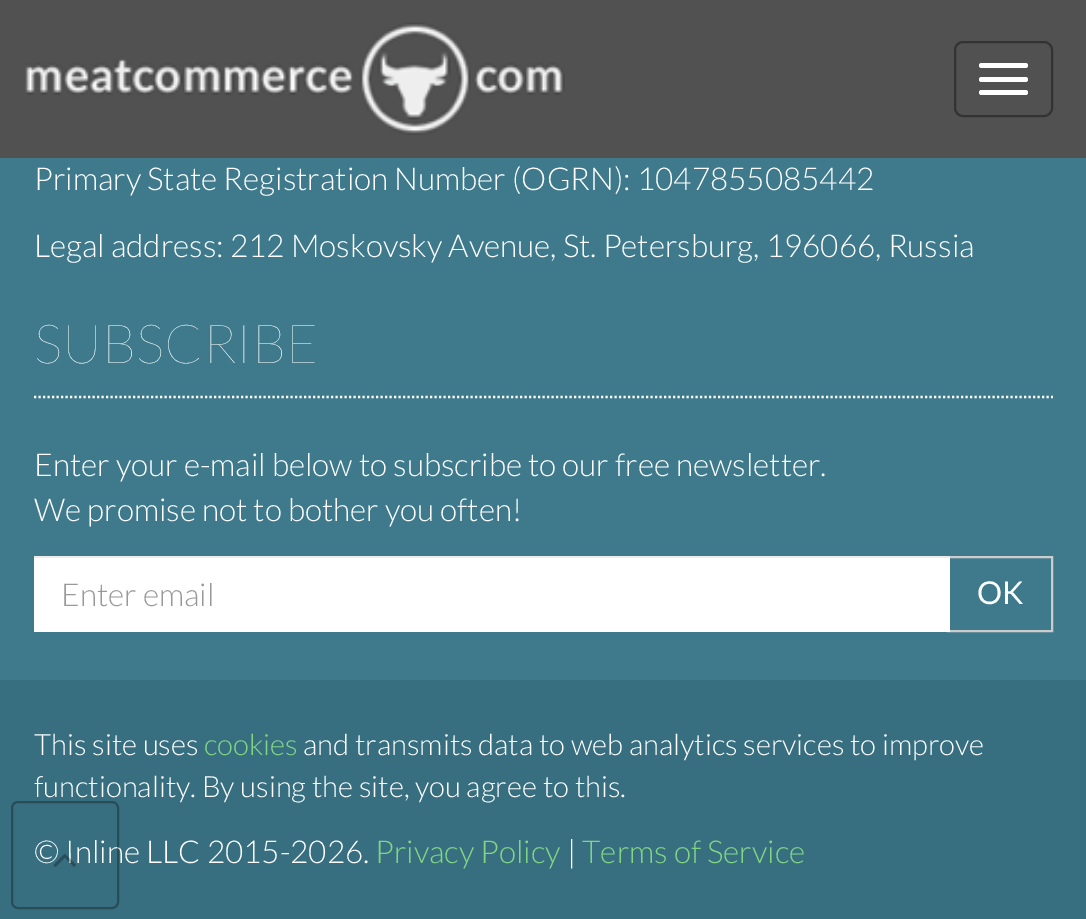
%!PS-Adobe-3.0
%%BoundingBox: 0 0 1086 919
%%LanguageLevel: 3
%%Pages: 1
%%EndComments
%%BeginProlog
/m { moveto } bind def
/l { lineto } bind def
/f { fill } bind def
/S { stroke } bind def
/w { setlinewidth } bind def
/fn { [ exch dup neg 0 0 3 -1 roll 0 0 ] selectfont } def
/tx { moveto show } def
/bx { rectfill } def
/al { dup .setfillconstantalpha .setstrokeconstantalpha } def
/rr { 5 dict begin { /r /h /w /y /x } { exch def } forall
  x r add y moveto x w add y 2 copy h add r arct x w add y h add x 1 index r arct
  x y h add x y r arct x y 2 copy exch w add exch r arct closepath end } def
/im { 5 dict begin { /h /w /y /x /name } { exch def } forall
  gsave x y translate w h scale
  w h 8 [w 0 0 h 0 0] name (r) file false 3 colorimage grestore end } def
%%EndProlog
%%BeginSetup
<< /PageSize [1086 919] /PageUsesTransparency true >> setpagedevice
%%EndSetup
%%Page: 1 1
0 .pushpdf14devicefilter
0 919 translate 1 -1 scale
4 setmiterlimit
0.243 0.478 0.549 setrgbcolor
0 0 1086 919 bx
0.318 setgray
0 0 1086 158 bx
(image0.raw) 25 22 540 113 im
0.2 setgray
2 w
955 42 97 74 8 rr S
1 setgray
979 63 49 5 2.5 rr f
979 77 49 5 2.5 rr f
979 90 49 5 2.5 rr f
/Lato-Light 31.5 fn
(Primary State Registration Number \(OGRN\): 1047855085442) 34 190 tx
(Legal address: 212 Moskovsky Avenue, St. Petersburg, 196066, Russia) 34 257 tx
2.2 w
[2.25 2.25] 0 setdash
34 397 m 1053 397 l S
/Lato-Thin 54 fn
(SUBSCRIBE) 34 363 tx
/Lato-Light 31.5 fn
(Enter your e-mail below to subscribe to our free newsletter.) 34 476 tx
(We promise not to bother you often!) 34 521 tx
0.8 setgray
2 w
[] 0 setdash
948 557 104 74 rectstroke
1 setgray
34 558 916 74 bx
0.925 setgray
34 556 916 2 bx
0.6 setgray
(Enter email) 61 606 tx
/Lato-Regular 31.5 fn
1 setgray
(OK) 977 604 tx
0.22 0.435 0.502 setrgbcolor
0 680 1086 239 bx
/Lato-Light 29.25 fn
1 setgray
(This site uses) 34 755 tx
0.506 0.839 0.522 setrgbcolor
(cookies) 204 755 tx
1 setgray
(and transmits data to web analytics services to improve) 303 755 tx
(functionality. By using the site, you agree to this.) 34 797 tx
/Lato-Light 31.5 fn
(© Inline LLC 2015-2026.) 34 863 tx
0.506 0.839 0.522 setrgbcolor
(Privacy Policy) 375 863 tx
1 setgray
(|) 567 863 tx
0.506 0.839 0.522 setrgbcolor
(Terms of Service) 582 863 tx
0.3 al
0 setgray
12 802 106 106 6 rr S
1 al
(image1.raw) 53 853 23 14 im
.poppdf14devicefilter showpage
%%EOF
